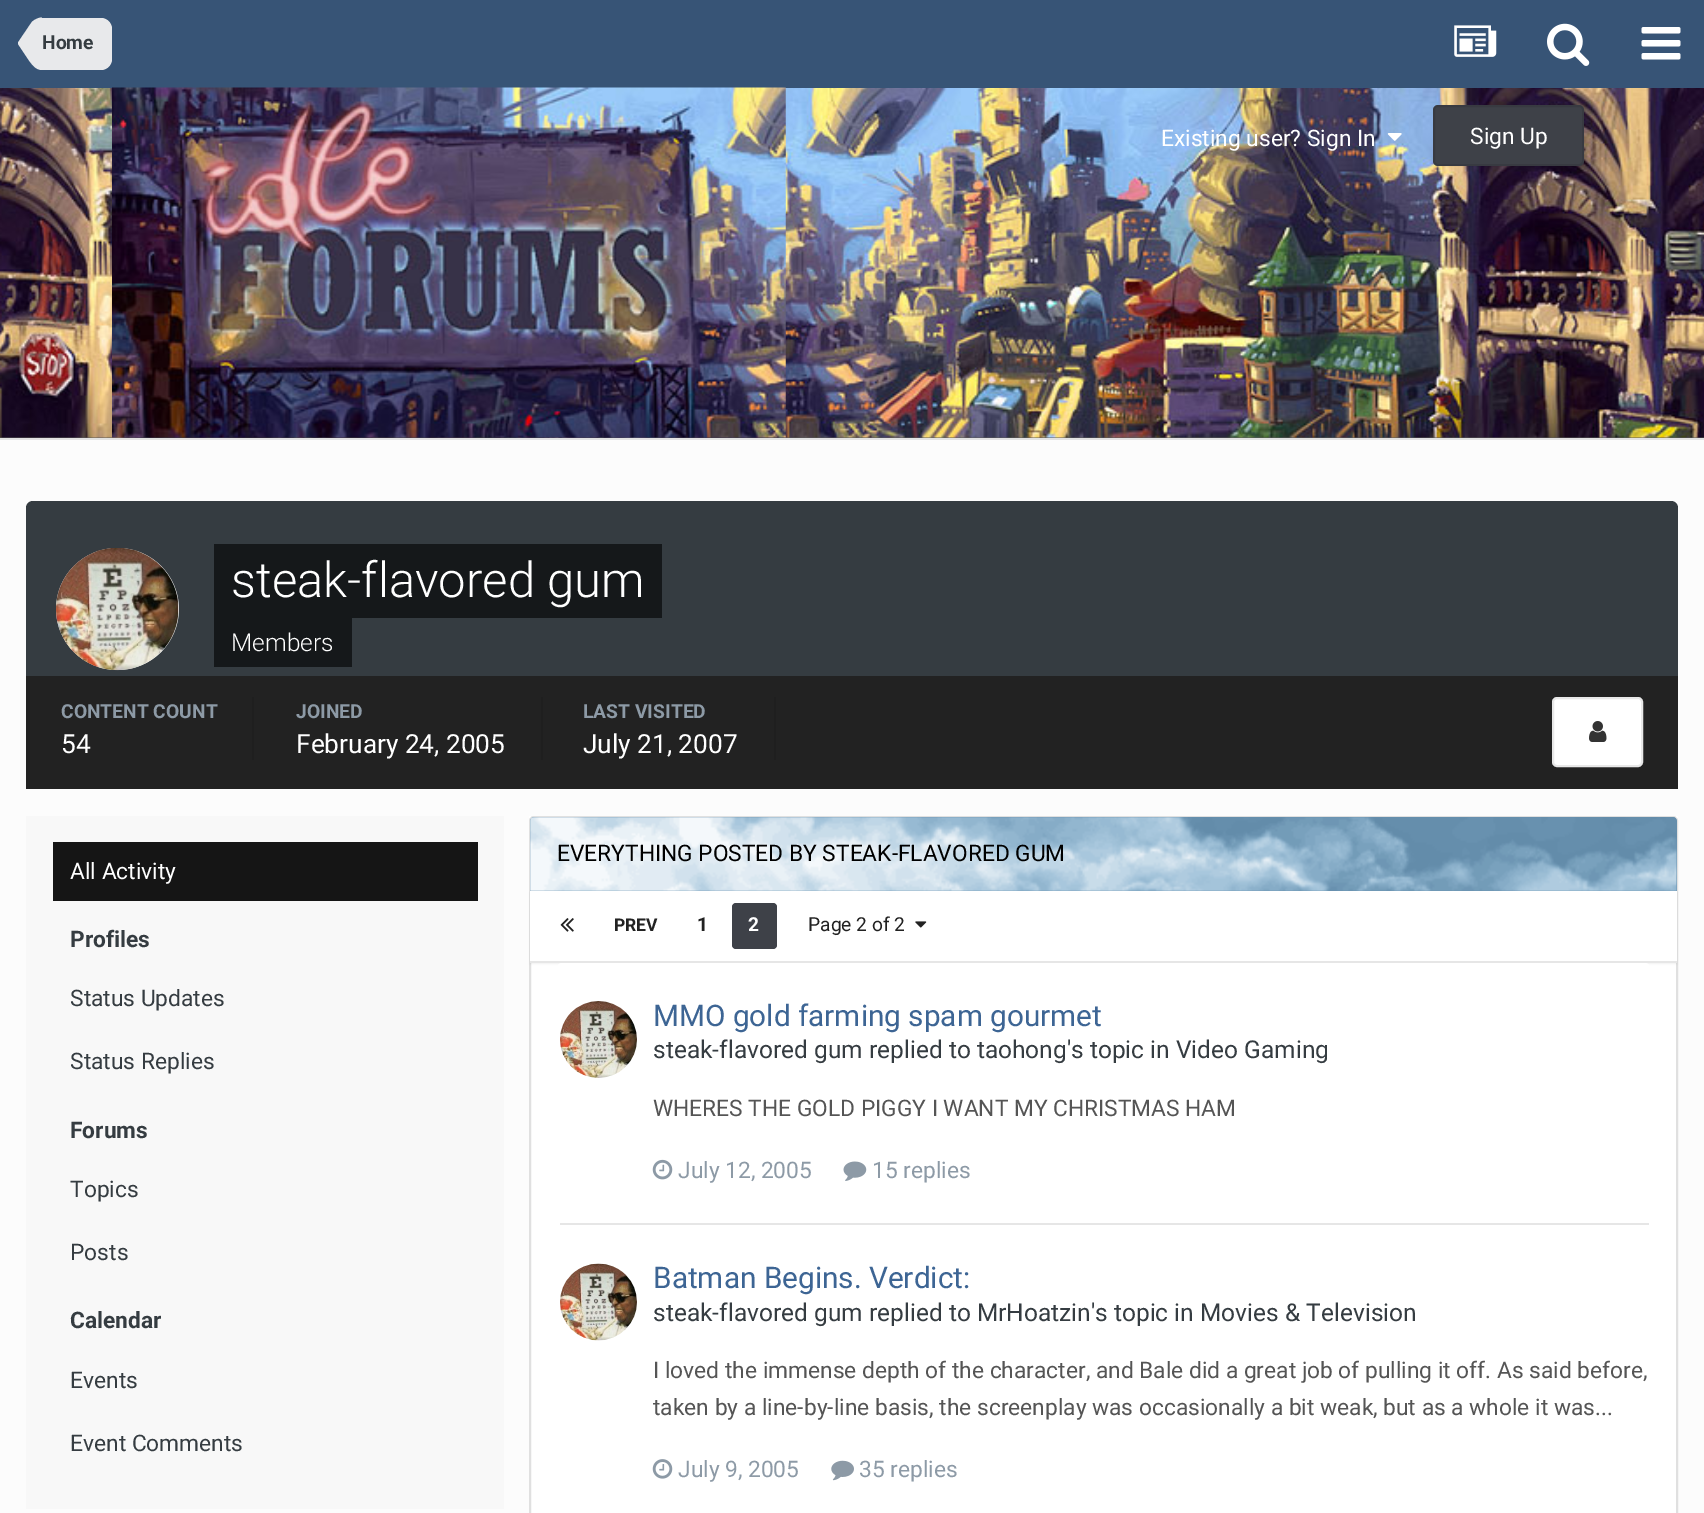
%!PS-Adobe-3.0
%%BoundingBox: 0 0 1704 1513
%%LanguageLevel: 3
%%Pages: 1
%%EndComments
%%BeginProlog
/m { moveto } bind def
/l { lineto } bind def
/c { curveto } bind def
/h { closepath } bind def
/f { fill } bind def
/S { stroke } bind def
/q { gsave } bind def
/Q { grestore } bind def
/w { setlinewidth } bind def
/fn { [ exch dup neg 0 0 3 -1 roll 0 0 ] selectfont } def
/tx { moveto show } def
/bx { rectfill } def
/al { dup .setfillconstantalpha .setstrokeconstantalpha } def
/rr { 5 dict begin { /r /h /w /y /x } { exch def } forall
  x r add y moveto x w add y 2 copy h add r arct x w add y h add x 1 index r arct
  x y h add x y r arct x y 2 copy exch w add exch r arct closepath end } def
/sh { 12 dict begin { /a /b /q /h /w /y /x } { exch def } forall gsave /was 0 def
  9 -2 -9 { dup b mul 4 div /e exch def 1 sub .425 mul 2.718 exch exp 1 add a .99 .min exch div /now exch def
    1 1 now sub 1 was sub div sub al /was now def
    w h .min e 2 mul add 0 gt { x e sub y e sub w e 2 mul add h e 2 mul add
      q e add b .6 mul add w h .min 2 div e add .min 0 .max rr fill } if } for grestore end } def
/im { 5 dict begin { /h /w /y /x /name } { exch def } forall
  gsave x y translate w h scale
  w h 8 [w 0 0 h 0 0] name (r) file false 3 colorimage grestore end } def
%%EndProlog
%%BeginSetup
<< /PageSize [1704 1513] /PageUsesTransparency true >> setpagedevice
%%EndSetup
%%Page: 1 1
0 .pushpdf14devicefilter
0 1513 translate 1 -1 scale
4 setmiterlimit
0.988 setgray
0 0 1704 1513 bx
0.89 setgray
0 438 1704 2 bx
0.216 0.329 0.463 setrgbcolor
0 0 1704 88 bx
0.91 0.914 0.922 setrgbcolor
42 18 m 101 18 l 107 18 112 23 112 29 c 112 59 l 112 65 107 70 101 70 c 42 70 l h f
18 44 m 42 44 l 42 70 l 35.5 70 31.5 64 28 59 c h 42 17.5 m 42 44 l 18 44 l 18 42.5 l 30.5 24 l 32 22 31.5 22 33 21 c 35.5 19 39 17.5 42 17.5 c h f
/Roboto-Bold 19.25 fn
0.208 0.235 0.255 setrgbcolor
(Home) 42 49 tx
(image0.raw) 1454 25 43 32 im
(image1.raw) 1547 23 43 43 im
(image2.raw) 1641 27 40 33 im
0.353 setgray
0 437 1704 1 bx
(image3.raw) 0 88 1704 350 im
(image4.raw) 112 87 674 351 im
/Roboto-Regular 22.75 fn
1 setgray
(Existing user? Sign In) 1161 146 tx
(image5.raw) 1387 133 15 8 im
0.243 0.255 0.282 setrgbcolor
1433 105 151 61 5 rr f
0.1 al
0 setgray
2 w
1434 106 149 59 4 rr S
1 al
1 setgray
(Sign Up) 1470 144 tx
0.208 0.235 0.255 setrgbcolor
33 501 m 1671 501 l 1675 501 1678 504 1678 508 c 1678 676 l 26 676 l 26 508 l 26 504 29 501 33 501 c h f
1 setgray
56 548 123 122 61 rr f
(image6.raw) 56 548 123 123 im
0.082 0.094 0.102 setrgbcolor
214 544 448 74 bx
/Roboto-Light 49 fn
1 setgray
(steak-flavored gum) 231 597 tx
0.082 0.094 0.102 setrgbcolor
214 618 138 49 bx
/Roboto-Light 24.5 fn
1 setgray
(Members) 231 651 tx
0.133 setgray
26 676 1652 113 bx
0.122 setgray
252 697 2 63 bx
/Roboto-Bold 19.25 fn
0.553 0.604 0.651 setrgbcolor
(CONTENT COUNT) 61 718 tx
/Roboto-Regular 26.25 fn
1 setgray
(54) 61 753 tx
0.122 setgray
541 697 2 63 bx
/Roboto-Bold 19.25 fn
0.553 0.604 0.651 setrgbcolor
(JOINED) 296 718 tx
/Roboto-Regular 26.25 fn
1 setgray
(February 24, 2005) 296 753 tx
0.122 setgray
774 697 2 63 bx
/Roboto-Bold 19.25 fn
0.553 0.604 0.651 setrgbcolor
(LAST VISITED) 583 718 tx
/Roboto-Regular 26.25 fn
1 setgray
(July 21, 2007) 583 753 tx
1553 698 89 68 4 rr q f Q
0.91 setgray
S
(image7.raw) 1589 721 18 21 im
0.973 setgray
26 816 478 693 bx
0.082 setgray
53 842 425 59 bx
/Roboto-Regular 22.75 fn
1 setgray
(All Activity) 70 879 tx
/Roboto-Bold 22.75 fn
0.208 0.235 0.255 setrgbcolor
(Profiles) 70 947 tx
/Roboto-Regular 22.75 fn
(Status Updates) 70 1006 tx
(Status Replies) 70 1069 tx
/Roboto-Bold 22.75 fn
(Forums) 70 1138 tx
/Roboto-Regular 22.75 fn
(Topics) 70 1197 tx
(Posts) 70 1260 tx
/Roboto-Bold 22.75 fn
(Calendar) 70 1328 tx
/Roboto-Regular 22.75 fn
(Events) 70 1388 tx
(Event Comments) 70 1451 tx
1 setgray
529 816 1149 697 bx
0.878 setgray
530 817 1147 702 4 rr S
0.396 0.557 0.675 setrgbcolor
534 817 m 1673 817 l 1675 817 1677 819 1677 821 c 1677 891 l 530 891 l 530 821 l 530 819 532 817 534 817 c h f
(image8.raw) 530 817 1147 74 im
0 setgray
(EVERYTHING POSTED BY STEAK-FLAVORED GUM) 557 861 tx
530 893 1147 71 0 1 0.05 sh
1 setgray
530 891 1147 70 bx
0.902 setgray
530 961 1147 2 bx
(image9.raw) 560 918 14 14 im
/Roboto-Bold 17.5 fn
0.133 setgray
(PREV) 614 931 tx
/Roboto-Bold 19.25 fn
(1) 697 931 tx
0.243 0.255 0.282 setrgbcolor
732 903 45 46 4 rr f
1 setgray
(2) 748 931 tx
/Roboto-Regular 19.25 fn
0.133 setgray
(Page 2 of 2) 808 931 tx
(image10.raw) 915 921 12 7 im
1 setgray
557 963 1093 262 5 rr f
0.902 setgray
560 1223 1089 2 bx
(image11.raw) 560 1001 77 77 im
/Roboto-Regular 29.75 fn
0.239 0.396 0.58 setrgbcolor
(MMO gold farming spam gourmet) 653 1026 tx
/Roboto-Regular 24.5 fn
0.208 0.235 0.255 setrgbcolor
(steak-flavored gum replied to taohong's topic in Video Gaming) 653 1058 tx
/Roboto-Regular 22.75 fn
0.333 setgray
(WHERES THE GOLD PIGGY I WANT MY CHRISTMAS HAM) 653 1116 tx
(image12.raw) 652 1159 21 21 im
0.553 0.604 0.651 setrgbcolor
(July 12, 2005) 678 1178 tx
(image13.raw) 843 1161 24 20 im
(15 replies) 872 1178 tx
(image14.raw) 560 1263 77 78 im
/Roboto-Regular 29.75 fn
0.239 0.396 0.58 setrgbcolor
(Batman Begins. Verdict:) 653 1288 tx
/Roboto-Regular 24.5 fn
0.208 0.235 0.255 setrgbcolor
(steak-flavored gum replied to MrHoatzin's topic in Movies & Television) 653 1321 tx
/Roboto-Regular 22.75 fn
0.333 setgray
(I loved the immense depth of the character, and Bale did a great job of pulling it off. As said before,) 653 1378 tx
(taken by a line-by-line basis, the screenplay was occasionally a bit weak, but as a whole it was...) 653 1415 tx
(image15.raw) 652 1459 21 20 im
0.553 0.604 0.651 setrgbcolor
(July 9, 2005) 678 1477 tx
(image16.raw) 831 1460 23 21 im
(35 replies) 859 1477 tx
.poppdf14devicefilter showpage
%%EOF
